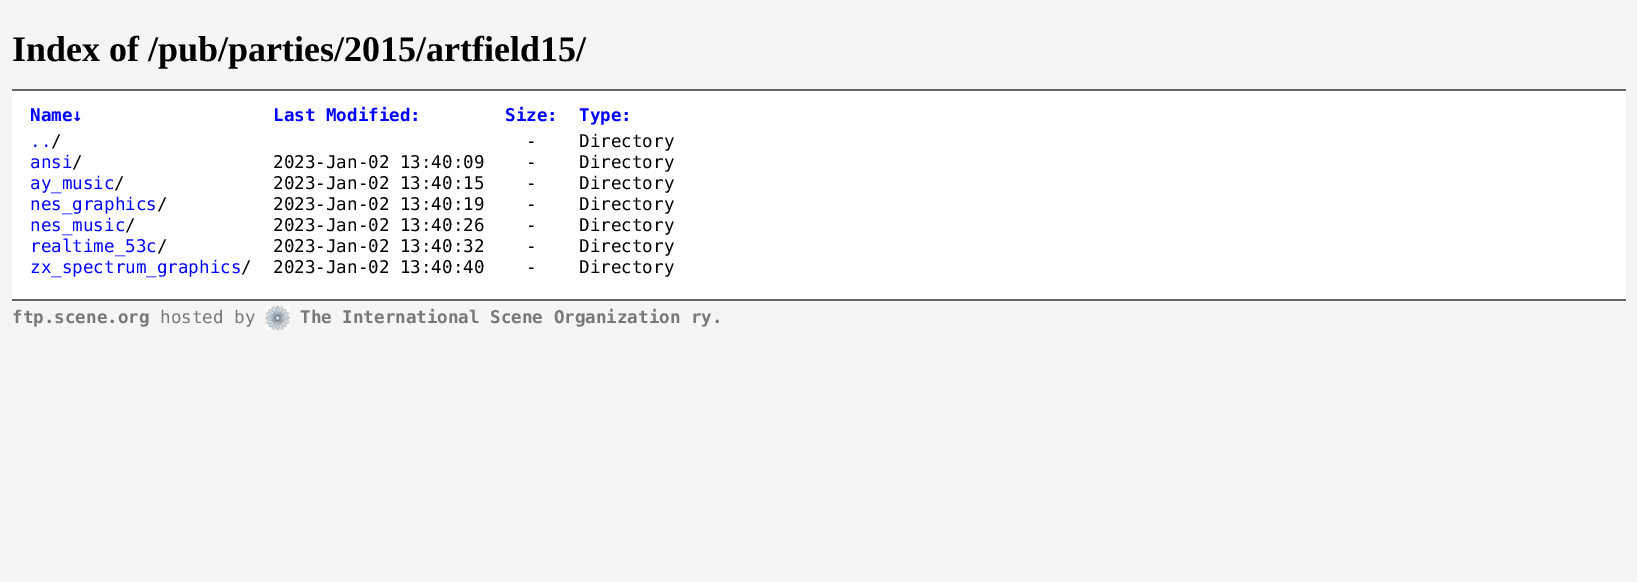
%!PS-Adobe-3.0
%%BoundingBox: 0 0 1637 582
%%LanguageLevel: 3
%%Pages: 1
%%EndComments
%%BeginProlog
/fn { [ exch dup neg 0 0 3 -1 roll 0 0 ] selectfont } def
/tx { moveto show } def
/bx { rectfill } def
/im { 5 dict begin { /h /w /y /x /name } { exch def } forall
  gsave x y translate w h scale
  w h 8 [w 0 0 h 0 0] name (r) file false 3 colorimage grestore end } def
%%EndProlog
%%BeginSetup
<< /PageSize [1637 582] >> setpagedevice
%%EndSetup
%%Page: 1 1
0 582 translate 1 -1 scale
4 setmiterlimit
0.961 setgray
0 0 1637 582 bx
/LiberationSerif-Bold 36 fn
0 setgray
(Index of /pub/parties/2015/artfield15/) 12 61 tx
1 setgray
12 91 1614 208 bx
0.392 setgray
12 89 1614 2 bx
12 299 1614 2 bx
/DejaVuSansMono-Bold 17.55 fn
0 0 1 setrgbcolor
(Name↓) 30 121 tx
(Last Modified:) 273 121 tx
(Size:) 505 121 tx
(Type:) 579 121 tx
/DejaVuSansMono-Regular 17.55 fn
(..) 30 147 tx
0 setgray
(/) 51 147 tx
(-) 526 147 tx
(Directory) 579 147 tx
0 0 1 setrgbcolor
(ansi) 30 168 tx
0 setgray
(/) 72 168 tx
(2023-Jan-02 13:40:09) 273 168 tx
(-) 526 168 tx
(Directory) 579 168 tx
0 0 1 setrgbcolor
(ay_music) 30 189 tx
0 setgray
(/) 114 189 tx
(2023-Jan-02 13:40:15) 273 189 tx
(-) 526 189 tx
(Directory) 579 189 tx
0 0 1 setrgbcolor
(nes_graphics) 30 210 tx
0 setgray
(/) 157 210 tx
(2023-Jan-02 13:40:19) 273 210 tx
(-) 526 210 tx
(Directory) 579 210 tx
0 0 1 setrgbcolor
(nes_music) 30 231 tx
0 setgray
(/) 125 231 tx
(2023-Jan-02 13:40:26) 273 231 tx
(-) 526 231 tx
(Directory) 579 231 tx
0 0 1 setrgbcolor
(realtime_53c) 30 252 tx
0 setgray
(/) 157 252 tx
(2023-Jan-02 13:40:32) 273 252 tx
(-) 526 252 tx
(Directory) 579 252 tx
0 0 1 setrgbcolor
(zx_spectrum_graphics) 30 273 tx
0 setgray
(/) 241 273 tx
(2023-Jan-02 13:40:40) 273 273 tx
(-) 526 273 tx
(Directory) 579 273 tx
/DejaVuSansMono-Bold 17.55 fn
0.471 setgray
(ftp.scene.org) 12 323 tx
/DejaVuSansMono-Regular 17.55 fn
(hosted by) 160 323 tx
(image0.raw) 265 306 25 24 im
/DejaVuSansMono-Bold 17.55 fn
(The International Scene Organization ry.) 300 323 tx
showpage
%%EOF
